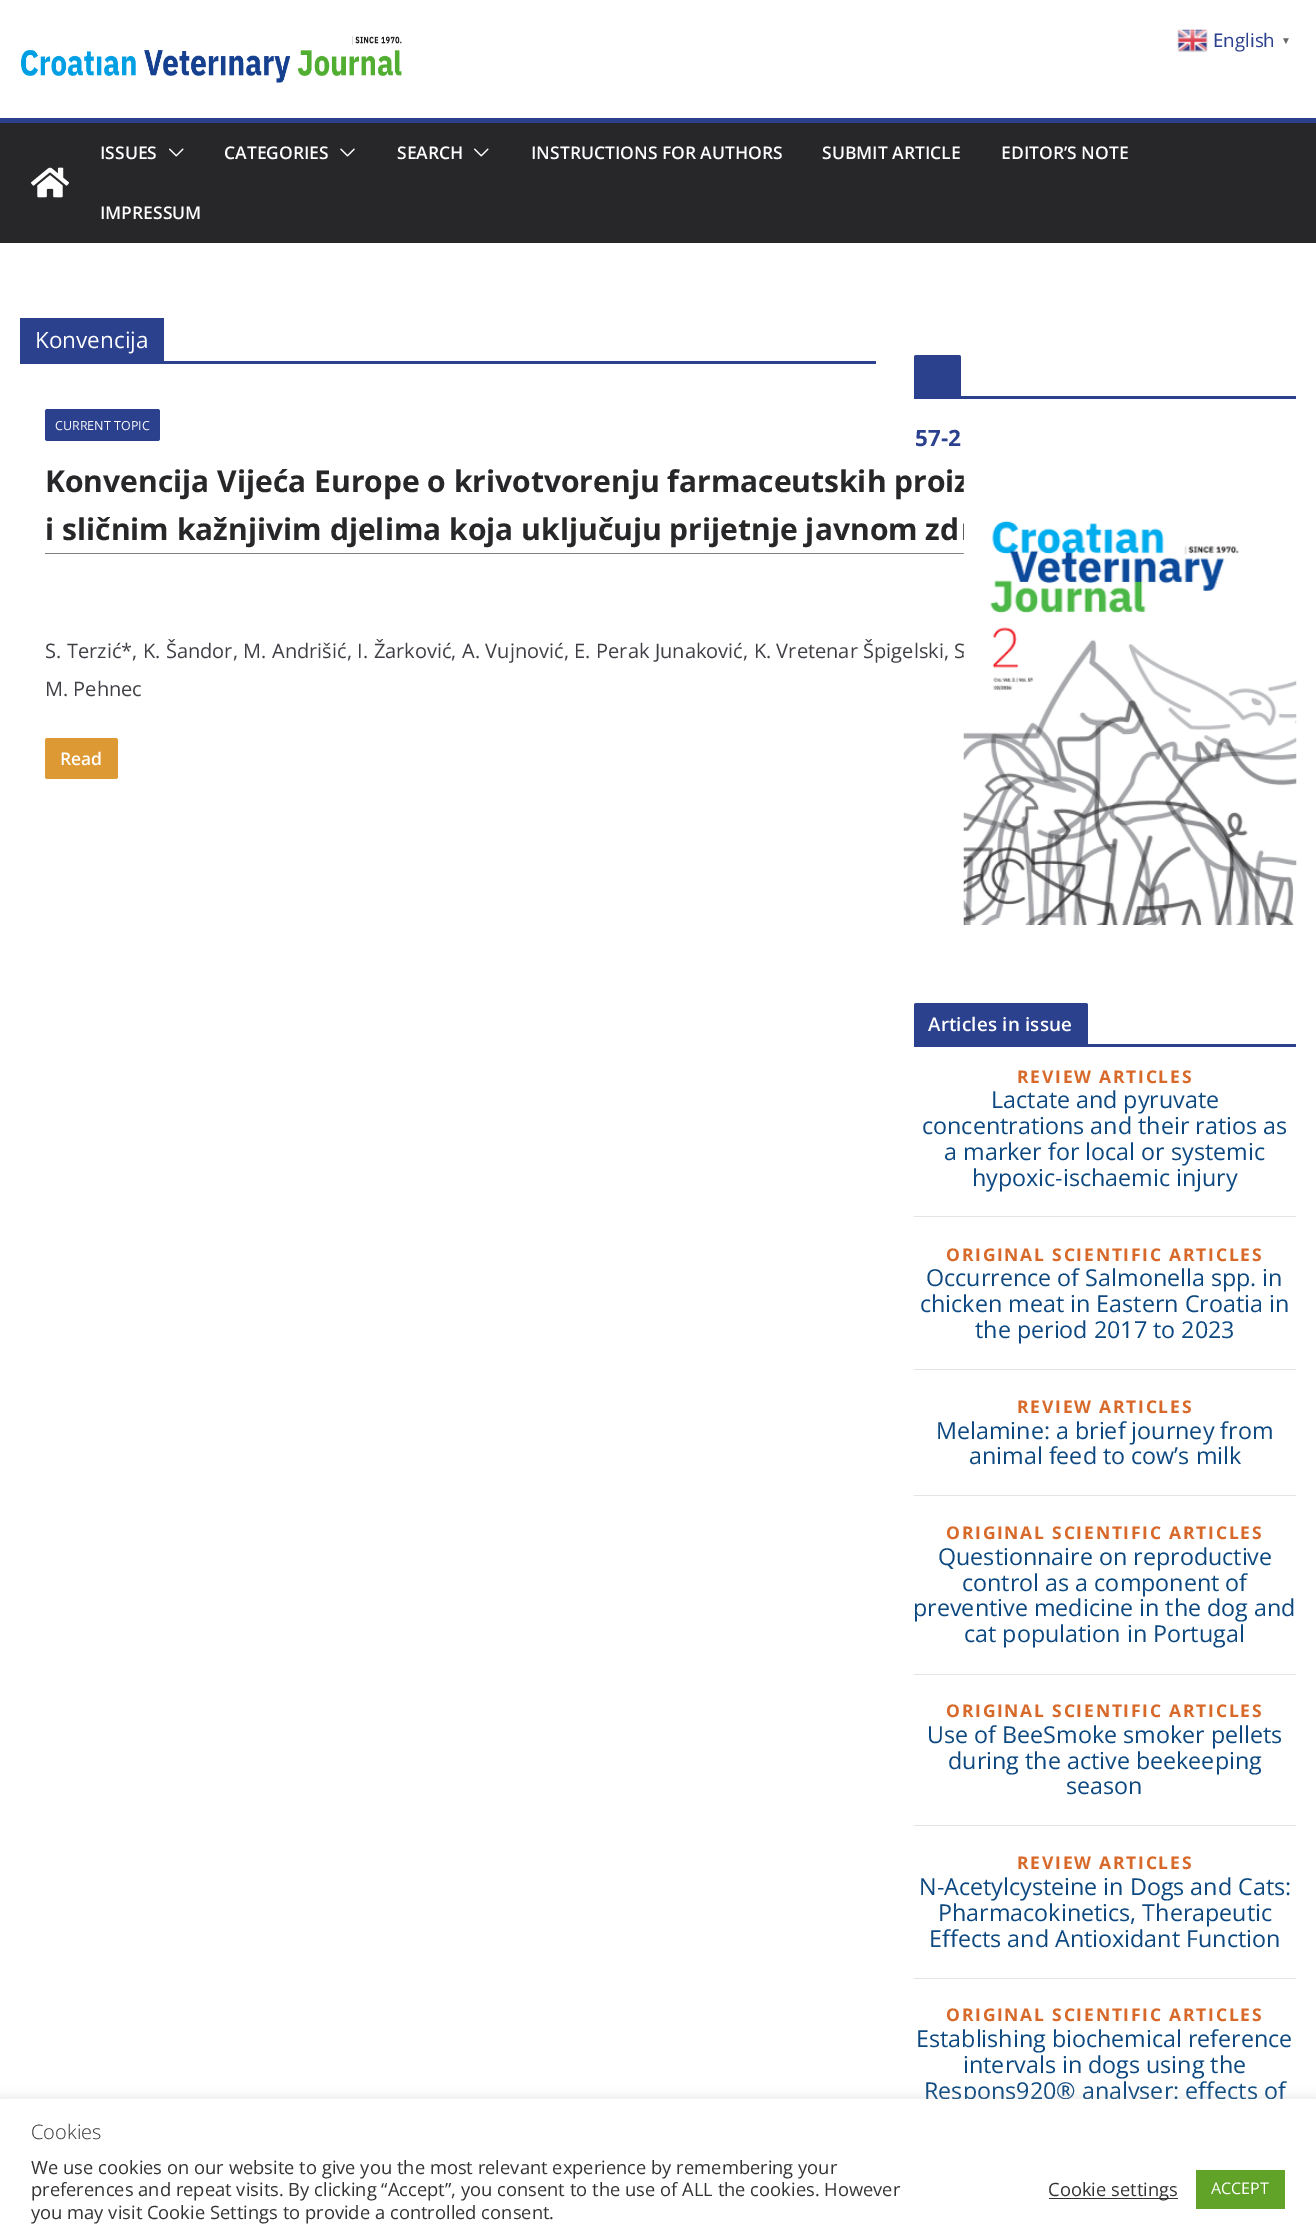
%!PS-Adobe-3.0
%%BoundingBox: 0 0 1316 2239
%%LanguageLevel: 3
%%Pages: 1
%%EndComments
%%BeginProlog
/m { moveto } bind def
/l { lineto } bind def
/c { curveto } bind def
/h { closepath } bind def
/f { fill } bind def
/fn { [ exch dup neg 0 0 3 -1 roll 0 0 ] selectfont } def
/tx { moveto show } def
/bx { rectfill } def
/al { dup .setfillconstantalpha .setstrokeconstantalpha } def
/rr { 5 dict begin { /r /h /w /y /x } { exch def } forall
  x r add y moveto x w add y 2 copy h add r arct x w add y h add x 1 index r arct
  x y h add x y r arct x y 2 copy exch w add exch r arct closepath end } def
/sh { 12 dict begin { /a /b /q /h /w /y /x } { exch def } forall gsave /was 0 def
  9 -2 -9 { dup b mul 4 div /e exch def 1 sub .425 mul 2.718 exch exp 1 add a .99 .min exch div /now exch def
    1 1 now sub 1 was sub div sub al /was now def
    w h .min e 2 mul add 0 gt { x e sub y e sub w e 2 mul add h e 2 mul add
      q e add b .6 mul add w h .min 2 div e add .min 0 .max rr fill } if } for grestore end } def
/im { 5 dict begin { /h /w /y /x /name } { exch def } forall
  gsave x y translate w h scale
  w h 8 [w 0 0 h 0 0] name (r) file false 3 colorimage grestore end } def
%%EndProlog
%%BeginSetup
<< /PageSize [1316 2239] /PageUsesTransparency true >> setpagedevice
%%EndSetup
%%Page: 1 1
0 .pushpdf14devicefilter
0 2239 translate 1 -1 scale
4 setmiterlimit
1 setgray
0 0 1316 2239 bx
(image0.raw) 1177 29 31 24 im
/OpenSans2-Regular 18.75 fn
0.169 0.255 0.557 setrgbcolor
(English) 1213 47 tx
/LiberationSerif-Bold 10 fn
0.4 setgray
(▼) 1281 44 tx
(image1.raw) 21 36 381 47 im
0.153 0.153 0.165 setrgbcolor
0 123 1316 120 bx
0.169 0.255 0.557 setrgbcolor
0 118 1316 5 bx
(image2.raw) 31 167 38 31 im
/OpenSans-SemiBold 17.5 fn
1 setgray
(ISSUES) 100 159 tx
(image3.raw) 169 148 15 9 im
(CATEGORIES) 224 159 tx
(image4.raw) 340 148 15 9 im
(SEARCH) 397 159 tx
(image3.raw) 474 148 15 9 im
(INSTRUCTIONS FOR AUTHORS) 531 159 tx
(SUBMIT ARTICLE) 822 159 tx
(EDITOR’S NOTE) 1001 159 tx
(IMPRESSUM) 100 219 tx
0.169 0.255 0.557 setrgbcolor
20 361 856 3 bx
20 318 144 43 bx
/OpenSans-Regular 22.5 fn
1 setgray
(Konvencija) 35 348 tx
0.169 0.255 0.557 setrgbcolor
45 409 115 32 2.5 rr f
/OpenSans2-Regular 12.5 fn
1 setgray
(CURRENT TOPIC) 55 430 tx
0.502 setgray
45 553 919 1 bx
/OpenSans-Bold 30 fn
0.153 0.153 0.165 setrgbcolor
(Konvencija Vijeća Europe o krivotvorenju farmaceutskih proiz) 45 492 tx
(i sličnim kažnjivim djelima koja uključuju prijetnje javnom zd) 45 540 tx
/OpenSans2-Regular 20 fn
0.247 0.247 0.275 setrgbcolor
45 658 m 0.3 0 32 (S. Terzić*, K. Šandor, M. Andrišić, I. Žarković, A. Vujnović, E. Perak Junaković, K. Vretenar Špigelski, S) widthshow
(M. Pehnec) 45 696 tx
0.867 0.6 0.2 setrgbcolor
45 738 73 41 2.5 rr f
/OpenSans-SemiBold 17.5 fn
1 setgray
(Read) 60 765 tx
0.169 0.255 0.557 setrgbcolor
914 396 382 3 bx
916.5 355 m 958.5 355 l 960 355 961 356 961 357.5 c 961 396 l 914 396 l 914 357.5 l 914 356 915 355 916.5 355 c h f
/OpenSans-Bold 22.5 fn
(57-2) 915 446 tx
(image5.raw) 963 469 334 456 im
914 1044 382 3 bx
916.5 1003 m 1085.5 1003 l 1087 1003 1088 1004 1088 1005.5 c 1088 1044 l 914 1044 l 914 1005.5 l 914 1004 915 1003 916.5 1003 c h f
/OpenSans-SemiBold 18.75 fn
1 setgray
928 1031 m 0.2 0 (Articles in issue) ashow
/OpenSans-Bold 17.5 fn
0.843 0.416 0.165 setrgbcolor
1017 1083 m 1.75 0 (REVIEW ARTICLES) ashow
/OpenSans2-Regular 23.3 fn
0.051 0.286 0.502 setrgbcolor
(Lactate and pyruvate) 991 1108 tx
(concentrations and their ratios as) 922 1134 tx
(a marker for local or systemic) 944 1160 tx
(hypoxic-ischaemic injury) 972 1186 tx
0.894 0.894 0.906 setrgbcolor
914 1216 382 1 bx
/OpenSans-Bold 17.5 fn
0.843 0.416 0.165 setrgbcolor
946 1261 m 1.75 0 (ORIGINAL SCIENTIFIC ARTICLES) ashow
/OpenSans2-Regular 23.3 fn
0.051 0.286 0.502 setrgbcolor
(Occurrence of Salmonella spp. in) 926 1286 tx
(chicken meat in Eastern Croatia in) 920 1312 tx
(the period 2017 to 2023) 975 1338 tx
0.894 0.894 0.906 setrgbcolor
914 1369 382 1 bx
/OpenSans-Bold 17.5 fn
0.843 0.416 0.165 setrgbcolor
1017 1413 m 1.75 0 (REVIEW ARTICLES) ashow
/OpenSans2-Regular 23.3 fn
0.051 0.286 0.502 setrgbcolor
(Melamine: a brief journey from) 936 1439 tx
(animal feed to cow’s milk) 969 1464 tx
0.894 0.894 0.906 setrgbcolor
914 1495 382 1 bx
/OpenSans-Bold 17.5 fn
0.843 0.416 0.165 setrgbcolor
946 1539 m 1.75 0 (ORIGINAL SCIENTIFIC ARTICLES) ashow
/OpenSans2-Regular 23.3 fn
0.051 0.286 0.502 setrgbcolor
(Questionnaire on reproductive) 938 1565 tx
(control as a component of) 962 1591 tx
(preventive medicine in the dog and) 913 1616 tx
(cat population in Portugal) 964 1642 tx
0.894 0.894 0.906 setrgbcolor
914 1674 382 1 bx
/OpenSans-Bold 17.5 fn
0.843 0.416 0.165 setrgbcolor
946 1717 m 1.75 0 (ORIGINAL SCIENTIFIC ARTICLES) ashow
/OpenSans2-Regular 23.3 fn
0.051 0.286 0.502 setrgbcolor
(Use of BeeSmoke smoker pellets) 927 1743 tx
(during the active beekeeping) 948 1769 tx
(season) 1066 1794 tx
0.894 0.894 0.906 setrgbcolor
914 1825 382 1 bx
/OpenSans-Bold 17.5 fn
0.843 0.416 0.165 setrgbcolor
1017 1869 m 1.75 0 (REVIEW ARTICLES) ashow
/OpenSans2-Regular 23.3 fn
0.051 0.286 0.502 setrgbcolor
(N-Acetylcysteine in Dogs and Cats:) 919 1895 tx
(Pharmacokinetics, Therapeutic) 938 1921 tx
(Effects and Antioxidant Function) 929 1947 tx
0.894 0.894 0.906 setrgbcolor
914 1978 382 1 bx
/OpenSans-Bold 17.5 fn
0.843 0.416 0.165 setrgbcolor
946 2021 m 1.75 0 (ORIGINAL SCIENTIFIC ARTICLES) ashow
/OpenSans2-Regular 23.3 fn
0.051 0.286 0.502 setrgbcolor
(Establishing biochemical reference) 916 2047 tx
(intervals in dogs using the) 963 2073 tx
(Respons920® analyser: effects of) 924 2099 tx
0.675 0.671 0.671 setrgbcolor
0 2098 1316 141 0 6 0.3 sh
1 setgray
0 2099 1316 140 bx
/OpenSans-Light 20 fn
0.2 setgray
(Cookies) 31 2139 tx
/OpenSans2-Regular 18.35 fn
(We use cookies on our website to give you the most relevant experience by remembering your) 31 2174 tx
(preferences and repeat visits. By clicking “Accept”, you consent to the use of ALL the cookies. However) 31 2196 tx
(you may visit Cookie Settings to provide a controlled consent.) 31 2219 tx
1049 2198 129 1 bx
(Cookie settings) 1048 2196 tx
0.38 0.635 0.161 setrgbcolor
1196 2170 89 39 bx
/OpenSans2-Regular 16 fn
1 setgray
(ACCEPT) 1211 2194 tx
.poppdf14devicefilter showpage
%%EOF
